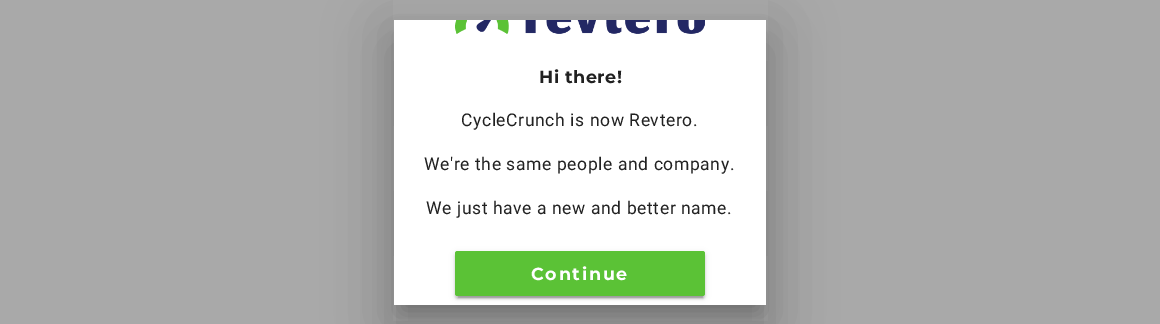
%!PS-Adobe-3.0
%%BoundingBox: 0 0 1160 324
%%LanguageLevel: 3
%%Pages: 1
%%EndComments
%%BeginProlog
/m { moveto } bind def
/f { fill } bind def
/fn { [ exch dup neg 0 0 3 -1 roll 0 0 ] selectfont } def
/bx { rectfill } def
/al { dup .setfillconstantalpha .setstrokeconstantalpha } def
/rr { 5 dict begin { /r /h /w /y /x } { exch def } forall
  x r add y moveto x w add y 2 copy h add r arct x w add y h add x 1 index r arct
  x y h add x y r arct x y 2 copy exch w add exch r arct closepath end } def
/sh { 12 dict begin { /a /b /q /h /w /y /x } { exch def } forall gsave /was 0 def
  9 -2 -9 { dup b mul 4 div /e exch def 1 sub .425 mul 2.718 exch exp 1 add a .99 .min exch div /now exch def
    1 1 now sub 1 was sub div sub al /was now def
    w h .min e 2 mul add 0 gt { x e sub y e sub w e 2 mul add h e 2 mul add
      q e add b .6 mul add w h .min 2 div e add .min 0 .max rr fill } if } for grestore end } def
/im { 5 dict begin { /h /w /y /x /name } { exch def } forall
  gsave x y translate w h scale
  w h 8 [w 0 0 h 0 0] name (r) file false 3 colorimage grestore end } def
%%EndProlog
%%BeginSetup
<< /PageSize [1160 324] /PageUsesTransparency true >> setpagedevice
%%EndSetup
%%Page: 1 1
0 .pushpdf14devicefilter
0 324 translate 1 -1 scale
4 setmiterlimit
0.663 setgray
0 0 1160 324 bx
0.678 setgray
393 0 375 321 bx
0.663 setgray
393 61 375 65 bx
393 191 375 65 bx
0 setgray
384 21 392 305 0 29 0.12 sh
390 46 380 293 0 24 0.14 sh
403 43 355 267 0 9.5 0.2 sh
1 setgray
394 20 372 285 bx
(image0.raw) 455 20 250 14 im
/Montserrat-Bold 17.5 fn
0.129 setgray
539 83 m 0.5 0 (Hi there!) ashow
/Roboto-Regular 17.5 fn
461 126 m 0.6 0 (CycleCrunch is now Revtero.) ashow
424 170 m 0.6 0 (We're the same people and company.) ashow
426 214 m 0.6 0 (We just have a new and better name.) ashow
0 setgray
455 253 250 45 2.5 3 0.12 sh
455 254 250 45 2.5 1 0.14 sh
458 258 245 40 0 0.5 0.2 sh
0.357 0.761 0.212 setrgbcolor
455 251 250 45 2.5 rr f
/Montserrat-Bold 17.5 fn
1 setgray
531 280 m 1.75 0 (Continue) ashow
.poppdf14devicefilter showpage
%%EOF
